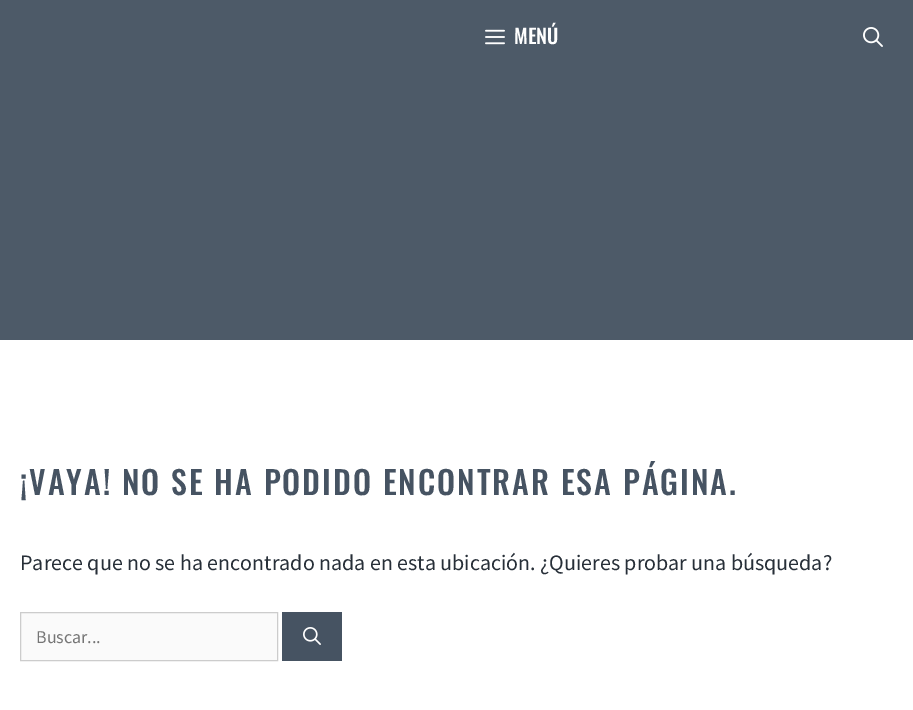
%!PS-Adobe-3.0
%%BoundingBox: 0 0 913 710
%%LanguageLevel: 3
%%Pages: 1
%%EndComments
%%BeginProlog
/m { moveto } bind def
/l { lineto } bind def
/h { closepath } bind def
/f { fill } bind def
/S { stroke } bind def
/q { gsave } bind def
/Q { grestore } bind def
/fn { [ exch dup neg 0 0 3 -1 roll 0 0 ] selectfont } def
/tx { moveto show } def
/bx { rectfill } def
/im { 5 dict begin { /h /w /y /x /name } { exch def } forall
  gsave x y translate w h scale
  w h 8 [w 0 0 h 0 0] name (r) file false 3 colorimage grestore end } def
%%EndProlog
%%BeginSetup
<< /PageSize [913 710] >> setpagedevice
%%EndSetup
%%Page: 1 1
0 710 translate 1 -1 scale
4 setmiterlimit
1 setgray
0 0 913 710 bx
0.302 0.353 0.408 setrgbcolor
0 0 913 340 bx
(image0.raw) 485 29 20 16 im
/Oswald-Medium 20 fn
1 setgray
(MENÚ) 514 44 tx
(image1.raw) 863 27 20 20 im
/Oswald-Medium 32 fn
0.275 0.325 0.384 setrgbcolor
20 495 m 2 0 (¡VAYA! NO SE HA PODIDO ENCONTRAR ESA PÁGINA.) ashow
/SourceSansPro-Regular 22 fn
0.153 0.184 0.22 setrgbcolor
(Parece que no se ha encontrado nada en esta ubicación. ¿Quieres probar una búsqueda?) 20 570 tx
0.98 setgray
20.5 612.5 m 277.5 612.5 l 277.5 660.5 l 20.5 660.5 l h q f Q
0.8 setgray
S
/SourceSansPro-Regular 18 fn
0.459 setgray
(Buscar...) 36 643 tx
0.275 0.325 0.384 setrgbcolor
282 612 60 49 bx
(image2.raw) 303 627 18 18 im
showpage
%%EOF
